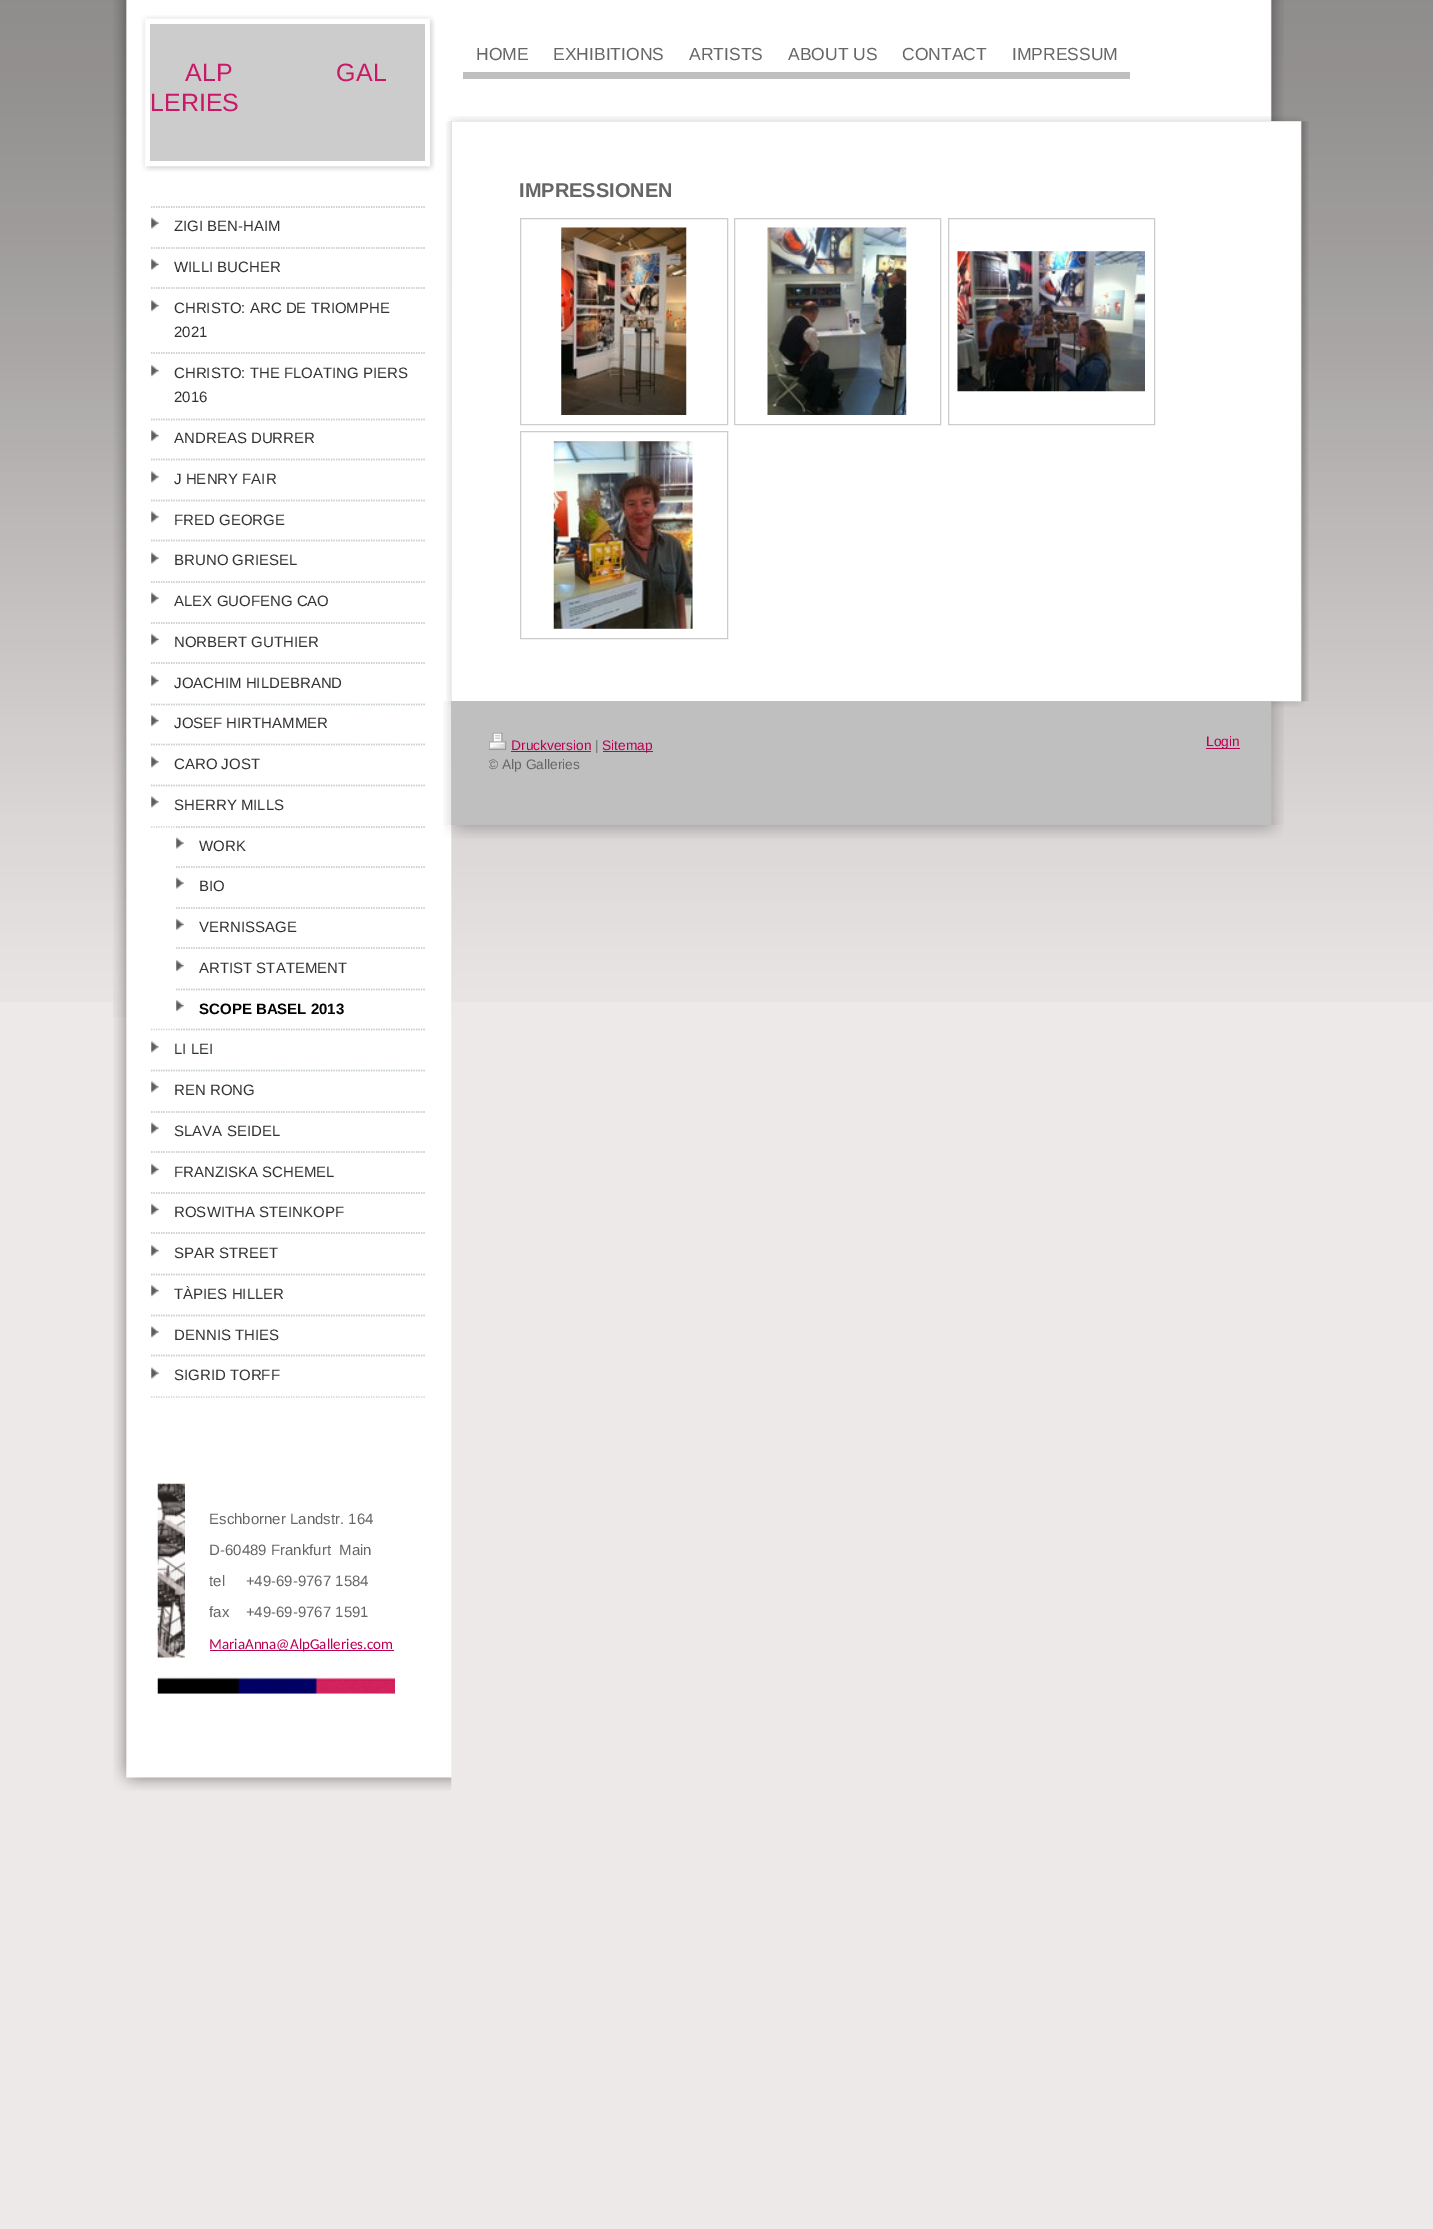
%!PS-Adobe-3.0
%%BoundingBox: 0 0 1433 2229
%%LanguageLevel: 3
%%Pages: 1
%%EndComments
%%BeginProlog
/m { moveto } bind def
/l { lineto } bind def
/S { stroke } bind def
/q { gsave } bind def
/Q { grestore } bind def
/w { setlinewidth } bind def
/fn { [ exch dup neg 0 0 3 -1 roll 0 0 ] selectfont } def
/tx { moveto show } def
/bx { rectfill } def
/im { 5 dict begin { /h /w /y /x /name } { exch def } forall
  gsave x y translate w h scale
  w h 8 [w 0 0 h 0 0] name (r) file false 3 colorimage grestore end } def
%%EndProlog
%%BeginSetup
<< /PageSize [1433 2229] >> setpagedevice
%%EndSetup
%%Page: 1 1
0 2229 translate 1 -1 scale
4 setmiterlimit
0.933 0.914 0.914 setrgbcolor
0 0 1433 2229 bx
(image0.raw) 0 0 1433 1002 im
(image1.raw) 113 0 339 1760 im
(image2.raw) 141 15 294 157 im
0.8 setgray
150 24 275 137 bx
/LiberationSans-Regular 25 fn
0.792 0.094 0.412 setrgbcolor
(ALP               GAL) 185 81 tx
(LERIES) 150 111 tx
0.792 0.82 0.835 setrgbcolor
1.2 w
[1.25 1.25] 0 setdash
151 207 m 426 207 l S
(image3.raw) 151 217 8 12 im
151 207 m 426 207 l S
151 248 m 426 248 l S
/LiberationSans-Regular 15 fn
0.2 setgray
(ZIGI BEN-HAIM) 174 231 tx
(image4.raw) 151 258 8 12 im
0.792 0.82 0.835 setrgbcolor
151 248 m 426 248 l S
151 288 m 426 288 l S
0.2 setgray
(WILLI BUCHER) 174 272 tx
(image5.raw) 151 300 8 12 im
0.792 0.82 0.835 setrgbcolor
151 288 m 426 288 l S
151 353 m 426 353 l S
0.2 setgray
(CHRISTO: ARC DE TRIOMPHE) 174 313 tx
(2021) 174 337 tx
(image5.raw) 151 365 8 12 im
0.792 0.82 0.835 setrgbcolor
151 353 m 426 353 l S
151 419.5 m 426 419.5 l S
0.2 setgray
(CHRISTO: THE FLOATING PIERS) 174 378 tx
(2016) 174 402 tx
(image5.raw) 151 430 8 12 im
0.792 0.82 0.835 setrgbcolor
151 419.5 m 426 419.5 l S
151 459.5 m 426 459.5 l S
0.2 setgray
(ANDREAS DURRER) 174 443 tx
(image6.raw) 151 471 8 12 im
0.792 0.82 0.835 setrgbcolor
151 459.5 m 426 459.5 l S
151 500.5 m 426 500.5 l S
0.2 setgray
(J HENRY FAIR) 174 484 tx
(image6.raw) 151 511 8 12 im
0.792 0.82 0.835 setrgbcolor
151 500.5 m 426 500.5 l S
151 540.5 m 426 540.5 l S
0.2 setgray
(FRED GEORGE) 174 525 tx
(image3.raw) 151 552 8 12 im
0.792 0.82 0.835 setrgbcolor
151 540.5 m 426 540.5 l S
151 582 m 426 582 l S
0.2 setgray
(BRUNO GRIESEL) 174 565 tx
(image3.raw) 151 592 8 12 im
0.792 0.82 0.835 setrgbcolor
151 582 m 426 582 l S
151 623 m 426 623 l S
0.2 setgray
(ALEX GUOFENG CAO) 174 606 tx
(image4.raw) 151 633 8 12 im
0.792 0.82 0.835 setrgbcolor
151 623 m 426 623 l S
151 663 m 426 663 l S
0.2 setgray
(NORBERT GUTHIER) 174 647 tx
(image5.raw) 151 675 8 12 im
0.792 0.82 0.835 setrgbcolor
151 663 m 426 663 l S
151 704.5 m 426 704.5 l S
0.2 setgray
(JOACHIM HILDEBRAND) 174 688 tx
(image5.raw) 151 715 8 12 im
0.792 0.82 0.835 setrgbcolor
151 704.5 m 426 704.5 l S
151 744.5 m 426 744.5 l S
0.2 setgray
(JOSEF HIRTHAMMER) 174 728 tx
(image6.raw) 151 756 8 12 im
0.792 0.82 0.835 setrgbcolor
151 744.5 m 426 744.5 l S
151 785.5 m 426 785.5 l S
0.2 setgray
(CARO JOST) 174 769 tx
(image6.raw) 151 796 8 12 im
0.792 0.82 0.835 setrgbcolor
151 785.5 m 426 785.5 l S
151 827 m 426 827 l S
0.2 setgray
(SHERRY MILLS) 174 810 tx
(image3.raw) 176 837 8 12 im
0.792 0.82 0.835 setrgbcolor
176 827 m 426 827 l S
176 867 m 426 867 l S
0.2 setgray
(WORK) 199 851 tx
(image3.raw) 176 877 8 12 im
0.792 0.82 0.835 setrgbcolor
176 867 m 426 867 l S
176 908 m 426 908 l S
0.2 setgray
(BIO) 199 891 tx
(image4.raw) 176 918 8 12 im
0.792 0.82 0.835 setrgbcolor
176 908 m 426 908 l S
176 948 m 426 948 l S
0.2 setgray
(VERNISSAGE) 199 932 tx
(image5.raw) 176 960 8 12 im
0.792 0.82 0.835 setrgbcolor
176 948 m 426 948 l S
176 989.5 m 426 989.5 l S
0.2 setgray
(ARTIST STATEMENT) 199 973 tx
(image5.raw) 176 1000 8 12 im
0.792 0.82 0.835 setrgbcolor
176 989.5 m 426 989.5 l S
176 1029.5 m 426 1029.5 l S
/LiberationSans-Bold 15 fn
0.004 setgray
(SCOPE BASEL 2013) 199 1014 tx
(image6.raw) 151 1041 8 12 im
0.792 0.82 0.835 setrgbcolor
151 1029.5 m 426 1029.5 l S
151 1070.5 m 426 1070.5 l S
/LiberationSans-Regular 15 fn
0.2 setgray
(LI LEI) 174 1054 tx
(image6.raw) 151 1081 8 12 im
0.792 0.82 0.835 setrgbcolor
151 1070.5 m 426 1070.5 l S
151 1112 m 426 1112 l S
0.2 setgray
(REN RONG) 174 1095 tx
(image3.raw) 151 1122 8 12 im
0.792 0.82 0.835 setrgbcolor
151 1112 m 426 1112 l S
151 1152 m 426 1152 l S
0.2 setgray
(SLAVA SEIDEL) 174 1136 tx
(image4.raw) 151 1163 8 12 im
0.792 0.82 0.835 setrgbcolor
151 1152 m 426 1152 l S
151 1193 m 426 1193 l S
0.2 setgray
(FRANZISKA SCHEMEL) 174 1177 tx
(image4.raw) 151 1203 8 12 im
0.792 0.82 0.835 setrgbcolor
151 1193 m 426 1193 l S
151 1233 m 426 1233 l S
0.2 setgray
(ROSWITHA STEINKOPF) 174 1217 tx
(image5.raw) 151 1245 8 12 im
0.792 0.82 0.835 setrgbcolor
151 1233 m 426 1233 l S
151 1274.5 m 426 1274.5 l S
0.2 setgray
(SPAR STREET) 174 1258 tx
(image5.raw) 151 1285 8 12 im
0.792 0.82 0.835 setrgbcolor
151 1274.5 m 426 1274.5 l S
151 1315.5 m 426 1315.5 l S
0.2 setgray
(TÀPIES HILLER) 174 1299 tx
(image6.raw) 151 1326 8 12 im
0.792 0.82 0.835 setrgbcolor
151 1315.5 m 426 1315.5 l S
151 1355.5 m 426 1355.5 l S
0.2 setgray
(DENNIS THIES) 174 1340 tx
(image3.raw) 151 1367 8 12 im
0.792 0.82 0.835 setrgbcolor
151 1355.5 m 426 1355.5 l S
151 1397 m 426 1397 l S
0.2 setgray
(SIGRID TORFF) 174 1380 tx
(image7.raw) 157 1483 28 175 im
0.4 setgray
(Eschborner Landstr. 164) 209 1524 tx
(D-60489 Frankfurt  Main) 209 1555 tx
(tel     +49-69-9767 1584) 209 1586 tx
(fax    +49-69-9767 1591) 209 1617 tx
0.733 0 0.333 setrgbcolor
210 1650 184 1 bx
/Carlito-Regular 15 fn
(MariaAnna@AlpGalleries.com) 209 1649 tx
(image8.raw) 157 1677 238 17 im
(image9.raw) 113 1760 339 31 im
(image10.raw) 451 0 833 122 im
0.749 setgray
463 72 667 7 bx
/LiberationSans-Regular 17.5 fn
0.4 setgray
(HOME) 476 60 tx
(EXHIBITIONS) 553 60 tx
(ARTISTS) 689 60 tx
(ABOUT US) 788 60 tx
(CONTACT) 902 60 tx
(IMPRESSUM) 1012 60 tx
(image11.raw) 448 116 856 5 im
(image12.raw) 446 121 863 581 im
/LiberationSans-Bold 20 fn
(IMPRESSIONEN) 519 197 tx
0.8 setgray
1 w
[] 0 setdash
520.5 218.5 207 206 rectstroke
(image13.raw) 561 227 126 188 im
734.5 218.5 206 206 rectstroke
(image14.raw) 767 227 140 188 im
948.5 218.5 206 206 rectstroke
(image15.raw) 957 251 188 141 im
520.5 431.5 207 207 rectstroke
(image16.raw) 553 441 140 188 im
(image17.raw) 449 701 855 6 im
(image18.raw) 443 701 841 124 im
(image19.raw) 489 732 18 18 im
/LiberationSans-Regular 13.75 fn
0.733 0 0.333 setrgbcolor
(Druckversion) 511 750 tx
511 751 80 1 bx
0.4 setgray
(|) 595 750 tx
0.733 0 0.333 setrgbcolor
603 751 50 1 bx
(Sitemap) 602 750 tx
q
489 733 751 61 rectclip
0.4 setgray
(© Alp Galleries) 488 769 tx
Q
1206 748 34 1 bx
(Login) 1206 746 tx
(image20.raw) 444 825 839 14 im
showpage
%%EOF
